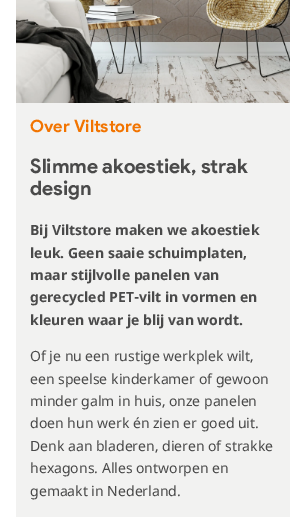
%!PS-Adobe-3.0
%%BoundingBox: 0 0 306 517
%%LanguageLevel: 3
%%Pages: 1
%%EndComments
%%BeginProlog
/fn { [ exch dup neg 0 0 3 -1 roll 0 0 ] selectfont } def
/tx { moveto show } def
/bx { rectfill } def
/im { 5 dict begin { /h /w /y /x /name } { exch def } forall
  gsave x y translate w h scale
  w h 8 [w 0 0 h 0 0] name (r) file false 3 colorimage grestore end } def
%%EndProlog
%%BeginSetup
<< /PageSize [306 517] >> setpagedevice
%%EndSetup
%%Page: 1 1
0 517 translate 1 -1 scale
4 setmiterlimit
1 setgray
0 0 306 517 bx
0.949 0.949 0.945 setrgbcolor
16 103 274 414 bx
(image0.raw) 16 0 274 103 im
/ProductSans-Bold 17 fn
0.949 0.455 0 setrgbcolor
(Over Viltstore) 30 132 tx
/ProductSans-Bold 20 fn
0.29 setgray
(Slimme akoestiek, strak) 30 173 tx
(design) 30 195 tx
/NotoSans-Bold 14 fn
(Bij Viltstore maken we akoestiek) 30 235 tx
(leuk. Geen saaie schuimplaten,) 30 258 tx
(maar stijlvolle panelen van) 30 280 tx
(gerecycled PET-vilt in vormen en) 30 302 tx
(kleuren waar je blij van wordt.) 30 325 tx
/NotoSans-Regular 14 fn
(Of je nu een rustige werkplek wilt,) 30 361 tx
(een speelse kinderkamer of gewoon) 30 384 tx
(minder galm in huis, onze panelen) 30 406 tx
(doen hun werk én zien er goed uit.) 30 428 tx
(Denk aan bladeren, dieren of strakke) 30 451 tx
(hexagons. Alles ontworpen en) 30 473 tx
(gemaakt in Nederland.) 30 496 tx
showpage
%%EOF
